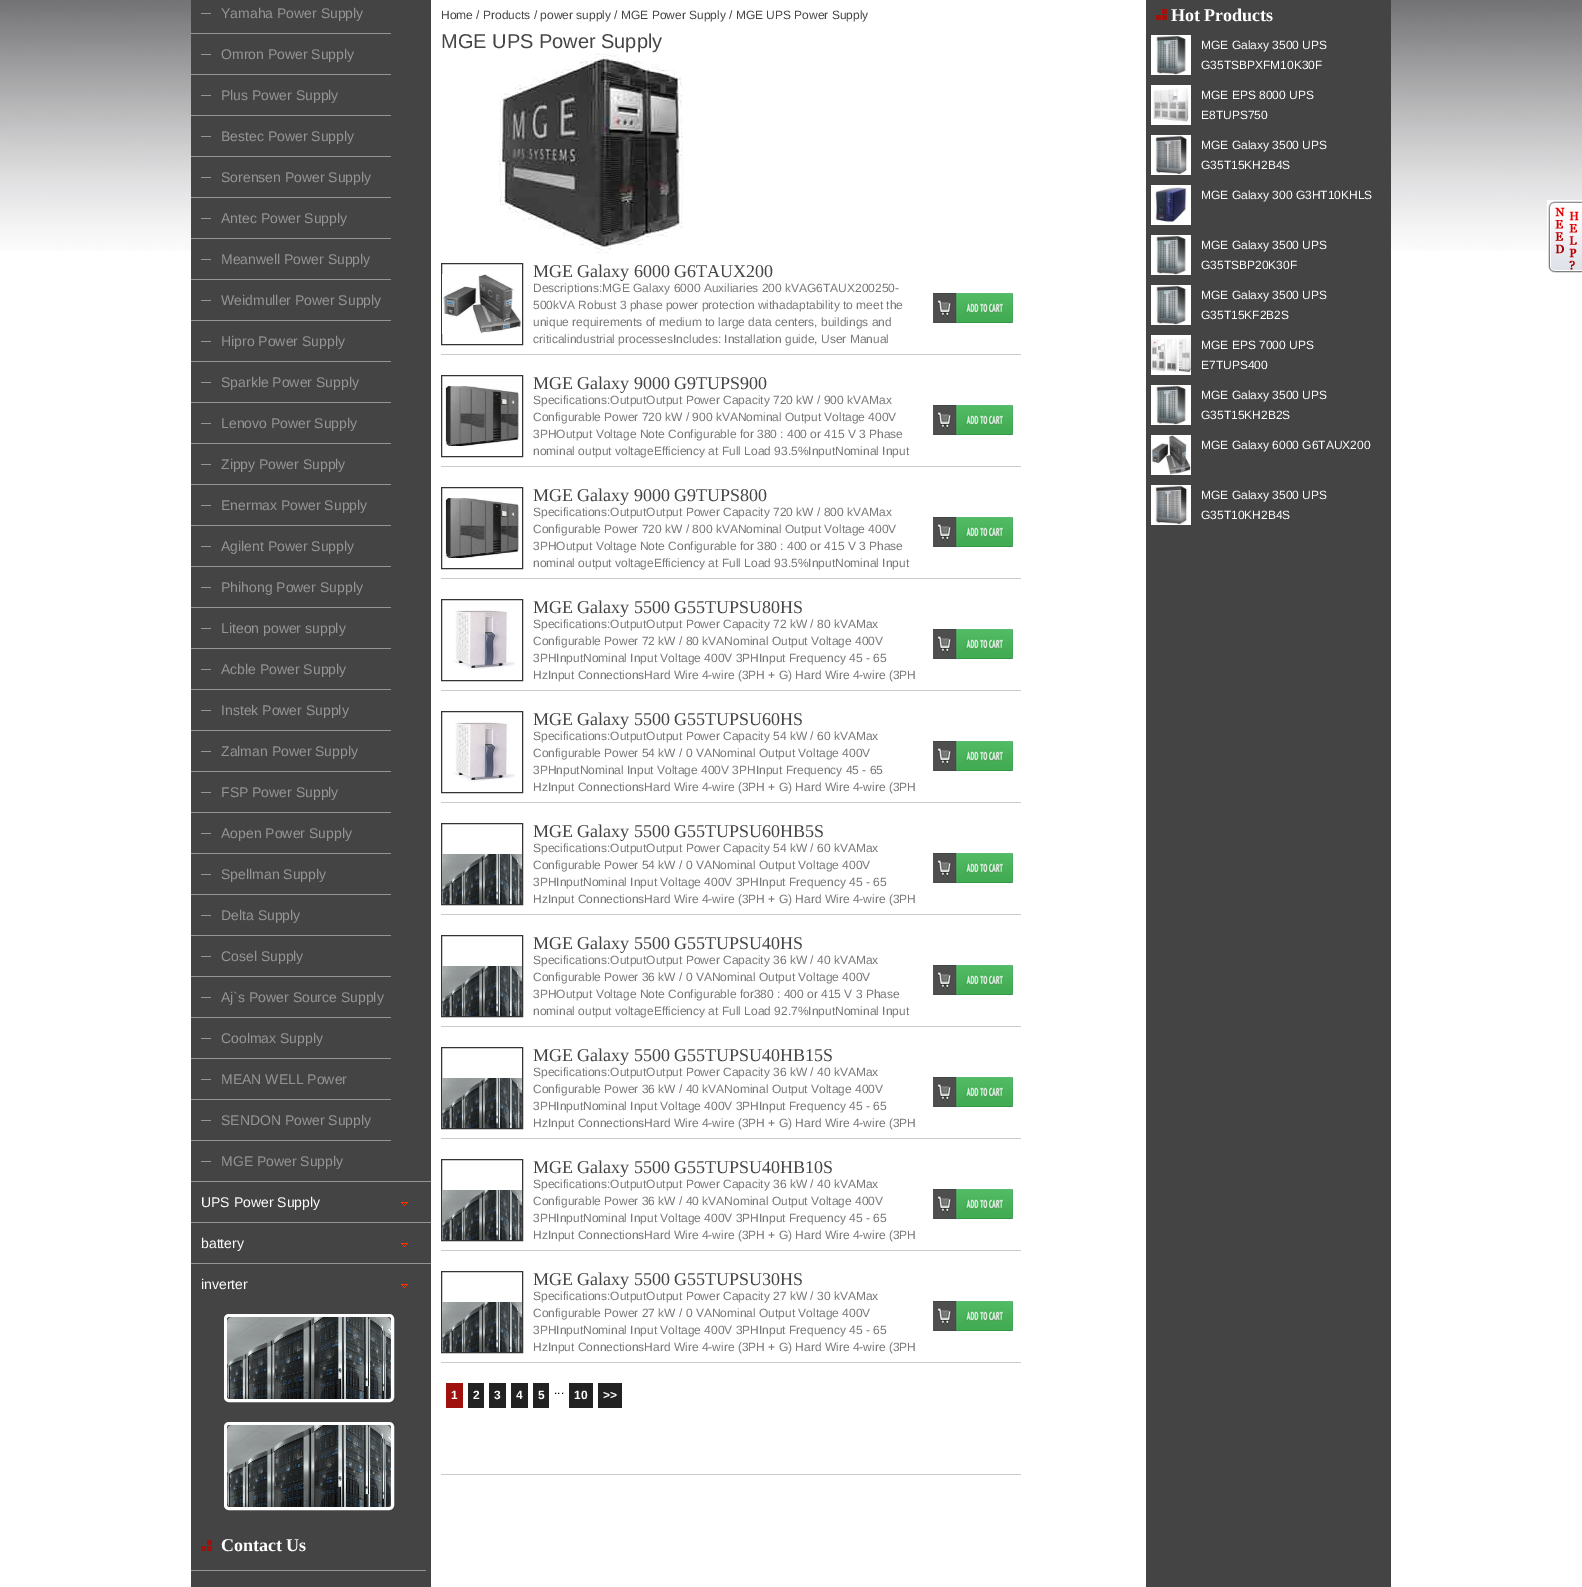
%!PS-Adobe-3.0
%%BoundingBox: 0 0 1582 1587
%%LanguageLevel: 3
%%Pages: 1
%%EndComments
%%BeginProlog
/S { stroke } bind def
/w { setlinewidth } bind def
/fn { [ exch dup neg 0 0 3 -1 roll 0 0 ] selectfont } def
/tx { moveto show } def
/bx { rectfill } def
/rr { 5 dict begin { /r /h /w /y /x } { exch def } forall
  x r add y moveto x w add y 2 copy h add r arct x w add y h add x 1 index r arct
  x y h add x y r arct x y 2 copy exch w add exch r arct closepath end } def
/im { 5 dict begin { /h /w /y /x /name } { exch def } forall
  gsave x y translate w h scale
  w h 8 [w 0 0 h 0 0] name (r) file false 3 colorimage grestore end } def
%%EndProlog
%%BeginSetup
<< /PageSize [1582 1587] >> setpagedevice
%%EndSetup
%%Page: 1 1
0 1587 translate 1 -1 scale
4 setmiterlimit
1 setgray
0 0 1582 1587 bx
(image0.raw) 0 0 1582 251 im
0.267 setgray
191 0 240 1587 bx
0.584 setgray
201 13 10 1 bx
/LiberationSans-Regular 14 fn
(Yamaha Power Supply) 221 18 tx
191 33 200 1 bx
201 54 10 1 bx
(Omron Power Supply) 221 59 tx
191 74 200 1 bx
201 95 10 1 bx
(Plus Power Supply) 221 100 tx
191 115 200 1 bx
201 136 10 1 bx
(Bestec Power Supply) 221 141 tx
191 156 200 1 bx
201 177 10 1 bx
(Sorensen Power Supply) 221 182 tx
191 197 200 1 bx
201 218 10 1 bx
(Antec Power Supply) 221 223 tx
191 238 200 1 bx
201 259 10 1 bx
(Meanwell Power Supply) 221 264 tx
191 279 200 1 bx
201 300 10 1 bx
(Weidmuller Power Supply) 221 305 tx
191 320 200 1 bx
201 341 10 1 bx
(Hipro Power Supply) 221 346 tx
191 361 200 1 bx
201 382 10 1 bx
(Sparkle Power Supply) 221 387 tx
191 402 200 1 bx
201 423 10 1 bx
(Lenovo Power Supply) 221 428 tx
191 443 200 1 bx
201 464 10 1 bx
(Zippy Power Supply) 221 469 tx
191 484 200 1 bx
201 505 10 1 bx
(Enermax Power Supply) 221 510 tx
191 525 200 1 bx
201 546 10 1 bx
(Agilent Power Supply) 221 551 tx
191 566 200 1 bx
201 587 10 1 bx
(Phihong Power Supply) 221 592 tx
191 607 200 1 bx
201 628 10 1 bx
(Liteon power supply) 221 633 tx
191 648 200 1 bx
201 669 10 1 bx
(Acble Power Supply) 221 674 tx
191 689 200 1 bx
201 710 10 1 bx
(Instek Power Supply) 221 715 tx
191 730 200 1 bx
201 751 10 1 bx
(Zalman Power Supply) 221 756 tx
191 771 200 1 bx
201 792 10 1 bx
(FSP Power Supply) 221 797 tx
191 812 200 1 bx
201 833 10 1 bx
(Aopen Power Supply) 221 838 tx
191 853 200 1 bx
201 874 10 1 bx
(Spellman Supply) 221 879 tx
191 894 200 1 bx
201 915 10 1 bx
(Delta Supply) 221 920 tx
191 935 200 1 bx
201 956 10 1 bx
(Cosel Supply) 221 961 tx
191 976 200 1 bx
201 997 10 1 bx
(Aj`s Power Source Supply) 221 1002 tx
191 1017 200 1 bx
201 1038 10 1 bx
(Coolmax Supply) 221 1043 tx
191 1058 200 1 bx
201 1079 10 1 bx
(MEAN WELL Power) 221 1084 tx
191 1099 200 1 bx
201 1120 10 1 bx
(SENDON Power Supply) 221 1125 tx
191 1140 200 1 bx
201 1161 10 1 bx
(MGE Power Supply) 221 1166 tx
(image1.raw) 401 1202 7 4 im
191 1181 240 1 bx
1 setgray
(UPS Power Supply) 201 1207 tx
(image1.raw) 401 1243 7 4 im
0.584 setgray
191 1222 240 1 bx
1 setgray
(battery) 201 1248 tx
(image1.raw) 401 1284 7 4 im
0.584 setgray
191 1263 240 1 bx
1 setgray
(inverter) 201 1289 tx
3 w
225.5 1315.5 167 85 3.5 rr S
(image2.raw) 227 1317 164 82 im
225.5 1423.5 167 85 3.5 rr S
(image2.raw) 227 1425 164 82 im
(image3.raw) 201 1540 11 11 im
/LiberationSerif-Bold 18 fn
(Contact Us) 221 1551 tx
0.584 setgray
191 1570 235 1 bx
/LiberationSans-Regular 12 fn
0.271 setgray
(Home / Products / power supply / MGE Power Supply / MGE UPS Power Supply) 441 19 tx
/LiberationSans-Regular 20 fn
(MGE UPS Power Supply) 441 48 tx
(image4.raw) 499 53 184 200 im
0.8 setgray
441 354 580 1 bx
0.204 setgray
1 w
441.5 263.5 81 81 rectstroke
(image5.raw) 442 274 80 60 im
/LiberationSerif-Regular 18 fn
0.271 setgray
(MGE Galaxy 6000 G6TAUX200) 533 277 tx
/LiberationSans-Regular 12 fn
0.471 setgray
(Descriptions:MGE Galaxy 6000 Auxiliaries 200 kVAG6TAUX200250-) 533 292 tx
(500kVA Robust 3 phase power protection withadaptability to meet the) 533 309 tx
(unique requirements of medium to large data centers, buildings and) 533 326 tx
(criticalindustrial processesIncludes: Installation guide, User Manual) 533 343 tx
(image6.raw) 933 293 80 30 im
0.8 setgray
441 466 580 1 bx
0.204 setgray
441.5 375.5 81 81 rectstroke
(image7.raw) 445 386 74 60 im
/LiberationSerif-Regular 18 fn
0.271 setgray
(MGE Galaxy 9000 G9TUPS900) 533 389 tx
/LiberationSans-Regular 12 fn
0.471 setgray
(Specifications:OutputOutput Power Capacity 720 kW / 900 kVAMax) 533 404 tx
(Configurable Power 720 kW / 900 kVANominal Output Voltage 400V) 533 421 tx
(3PHOutput Voltage Note Configurable for 380 : 400 or 415 V 3 Phase) 533 438 tx
(nominal output voltageEfficiency at Full Load 93.5%InputNominal Input) 533 455 tx
(image6.raw) 933 405 80 30 im
0.8 setgray
441 578 580 1 bx
0.204 setgray
441.5 487.5 81 81 rectstroke
(image8.raw) 445 498 74 60 im
/LiberationSerif-Regular 18 fn
0.271 setgray
(MGE Galaxy 9000 G9TUPS800) 533 501 tx
/LiberationSans-Regular 12 fn
0.471 setgray
(Specifications:OutputOutput Power Capacity 720 kW / 800 kVAMax) 533 516 tx
(Configurable Power 720 kW / 800 kVANominal Output Voltage 400V) 533 533 tx
(3PHOutput Voltage Note Configurable for 380 : 400 or 415 V 3 Phase) 533 550 tx
(nominal output voltageEfficiency at Full Load 93.5%InputNominal Input) 533 567 tx
(image6.raw) 933 517 80 30 im
0.8 setgray
441 690 580 1 bx
0.204 setgray
441.5 599.5 81 81 rectstroke
(image9.raw) 453 610 63 60 im
/LiberationSerif-Regular 18 fn
0.271 setgray
(MGE Galaxy 5500 G55TUPSU80HS) 533 613 tx
/LiberationSans-Regular 12 fn
0.471 setgray
(Specifications:OutputOutput Power Capacity 72 kW / 80 kVAMax) 533 628 tx
(Configurable Power 72 kW / 80 kVANominal Output Voltage 400V) 533 645 tx
(3PHInputNominal Input Voltage 400V 3PHInput Frequency 45 - 65) 533 662 tx
(HzInput ConnectionsHard Wire 4-wire \(3PH + G\) Hard Wire 4-wire \(3PH) 533 679 tx
(image6.raw) 933 629 80 30 im
0.8 setgray
441 802 580 1 bx
0.204 setgray
441.5 711.5 81 81 rectstroke
(image9.raw) 453 722 63 60 im
/LiberationSerif-Regular 18 fn
0.271 setgray
(MGE Galaxy 5500 G55TUPSU60HS) 533 725 tx
/LiberationSans-Regular 12 fn
0.471 setgray
(Specifications:OutputOutput Power Capacity 54 kW / 60 kVAMax) 533 740 tx
(Configurable Power 54 kW / 0 VANominal Output Voltage 400V) 533 757 tx
(3PHnputNominal Input Voltage 400V 3PHInput Frequency 45 - 65) 533 774 tx
(HzInput ConnectionsHard Wire 4-wire \(3PH + G\) Hard Wire 4-wire \(3PH) 533 791 tx
(image6.raw) 933 741 80 30 im
0.8 setgray
441 914 580 1 bx
0.204 setgray
441.5 823.5 81 81 rectstroke
(image10.raw) 442 854 80 50 im
/LiberationSerif-Regular 18 fn
0.271 setgray
(MGE Galaxy 5500 G55TUPSU60HB5S) 533 837 tx
/LiberationSans-Regular 12 fn
0.471 setgray
(Specifications:OutputOutput Power Capacity 54 kW / 60 kVAMax) 533 852 tx
(Configurable Power 54 kW / 0 VANominal Output Voltage 400V) 533 869 tx
(3PHInputNominal Input Voltage 400V 3PHInput Frequency 45 - 65) 533 886 tx
(HzInput ConnectionsHard Wire 4-wire \(3PH + G\) Hard Wire 4-wire \(3PH) 533 903 tx
(image6.raw) 933 853 80 30 im
0.8 setgray
441 1026 580 1 bx
0.204 setgray
441.5 935.5 81 81 rectstroke
(image10.raw) 442 966 80 50 im
/LiberationSerif-Regular 18 fn
0.271 setgray
(MGE Galaxy 5500 G55TUPSU40HS) 533 949 tx
/LiberationSans-Regular 12 fn
0.471 setgray
(Specifications:OutputOutput Power Capacity 36 kW / 40 kVAMax) 533 964 tx
(Configurable Power 36 kW / 0 VANominal Output Voltage 400V) 533 981 tx
(3PHOutput Voltage Note Configurable for380 : 400 or 415 V 3 Phase) 533 998 tx
(nominal output voltageEfficiency at Full Load 92.7%InputNominal Input) 533 1015 tx
(image6.raw) 933 965 80 30 im
0.8 setgray
441 1138 580 1 bx
0.204 setgray
441.5 1047.5 81 81 rectstroke
(image10.raw) 442 1078 80 50 im
/LiberationSerif-Regular 18 fn
0.271 setgray
(MGE Galaxy 5500 G55TUPSU40HB15S) 533 1061 tx
/LiberationSans-Regular 12 fn
0.471 setgray
(Specifications:OutputOutput Power Capacity 36 kW / 40 kVAMax) 533 1076 tx
(Configurable Power 36 kW / 40 kVANominal Output Voltage 400V) 533 1093 tx
(3PHInputNominal Input Voltage 400V 3PHInput Frequency 45 - 65) 533 1110 tx
(HzInput ConnectionsHard Wire 4-wire \(3PH + G\) Hard Wire 4-wire \(3PH) 533 1127 tx
(image6.raw) 933 1077 80 30 im
0.8 setgray
441 1250 580 1 bx
0.204 setgray
441.5 1159.5 81 81 rectstroke
(image10.raw) 442 1190 80 50 im
/LiberationSerif-Regular 18 fn
0.271 setgray
(MGE Galaxy 5500 G55TUPSU40HB10S) 533 1173 tx
/LiberationSans-Regular 12 fn
0.471 setgray
(Specifications:OutputOutput Power Capacity 36 kW / 40 kVAMax) 533 1188 tx
(Configurable Power 36 kW / 40 kVANominal Output Voltage 400V) 533 1205 tx
(3PHInputNominal Input Voltage 400V 3PHInput Frequency 45 - 65) 533 1222 tx
(HzInput ConnectionsHard Wire 4-wire \(3PH + G\) Hard Wire 4-wire \(3PH) 533 1239 tx
(image6.raw) 933 1189 80 30 im
0.8 setgray
441 1362 580 1 bx
0.204 setgray
441.5 1271.5 81 81 rectstroke
(image10.raw) 442 1302 80 50 im
/LiberationSerif-Regular 18 fn
0.271 setgray
(MGE Galaxy 5500 G55TUPSU30HS) 533 1285 tx
/LiberationSans-Regular 12 fn
0.471 setgray
(Specifications:OutputOutput Power Capacity 27 kW / 30 kVAMax) 533 1300 tx
(Configurable Power 27 kW / 0 VANominal Output Voltage 400V) 533 1317 tx
(3PHInputNominal Input Voltage 400V 3PHInput Frequency 45 - 65) 533 1334 tx
(HzInput ConnectionsHard Wire 4-wire \(3PH + G\) Hard Wire 4-wire \(3PH) 533 1351 tx
(image6.raw) 933 1301 80 30 im
0.8 setgray
441 1474 580 1 bx
0.627 0.063 0.051 setrgbcolor
446 1383 17 25 bx
/LiberationSans-Bold 12 fn
1 setgray
(1) 451 1399 tx
0.133 setgray
468 1383 16 25 bx
1 setgray
(2) 473 1399 tx
0.133 setgray
489 1383 17 25 bx
1 setgray
(3) 494 1399 tx
0.133 setgray
511 1383 17 25 bx
1 setgray
(4) 516 1399 tx
0.133 setgray
533 1383 16 25 bx
1 setgray
(5) 538 1399 tx
/LiberationSans-Regular 12 fn
0 setgray
(...) 554 1394 tx
0.133 setgray
569 1383 24 25 bx
/LiberationSans-Bold 12 fn
1 setgray
(10) 574 1399 tx
0.133 setgray
598 1383 24 25 bx
1 setgray
(>>) 603 1399 tx
0.267 setgray
1146 0 245 1587 bx
(image3.raw) 1156 9 11 11 im
/LiberationSerif-Bold 18 fn
1 setgray
(Hot Products) 1171 21 tx
(image11.raw) 1151 35 40 40 im
/LiberationSans-Regular 12 fn
(MGE Galaxy 3500 UPS) 1201 49 tx
(G35TSBPXFM10K30F) 1201 69 tx
(image12.raw) 1151 85 40 40 im
(MGE EPS 8000 UPS) 1201 99 tx
(E8TUPS750) 1201 119 tx
(image13.raw) 1151 135 40 40 im
(MGE Galaxy 3500 UPS) 1201 149 tx
(G35T15KH2B4S) 1201 169 tx
(image14.raw) 1151 185 40 40 im
(MGE Galaxy 300 G3HT10KHLS) 1201 199 tx
(image11.raw) 1151 235 40 40 im
(MGE Galaxy 3500 UPS) 1201 249 tx
(G35TSBP20K30F) 1201 269 tx
(image11.raw) 1151 285 40 40 im
(MGE Galaxy 3500 UPS) 1201 299 tx
(G35T15KF2B2S) 1201 319 tx
(image15.raw) 1151 335 40 40 im
(MGE EPS 7000 UPS) 1201 349 tx
(E7TUPS400) 1201 369 tx
(image11.raw) 1151 385 40 40 im
(MGE Galaxy 3500 UPS) 1201 399 tx
(G35T15KH2B2S) 1201 419 tx
(image16.raw) 1151 435 40 40 im
(MGE Galaxy 6000 G6TAUX200) 1201 449 tx
(image13.raw) 1151 485 40 40 im
(MGE Galaxy 3500 UPS) 1201 499 tx
(G35T10KH2B4S) 1201 519 tx
(image17.raw) 1547 200 35 73 im
showpage
%%EOF
